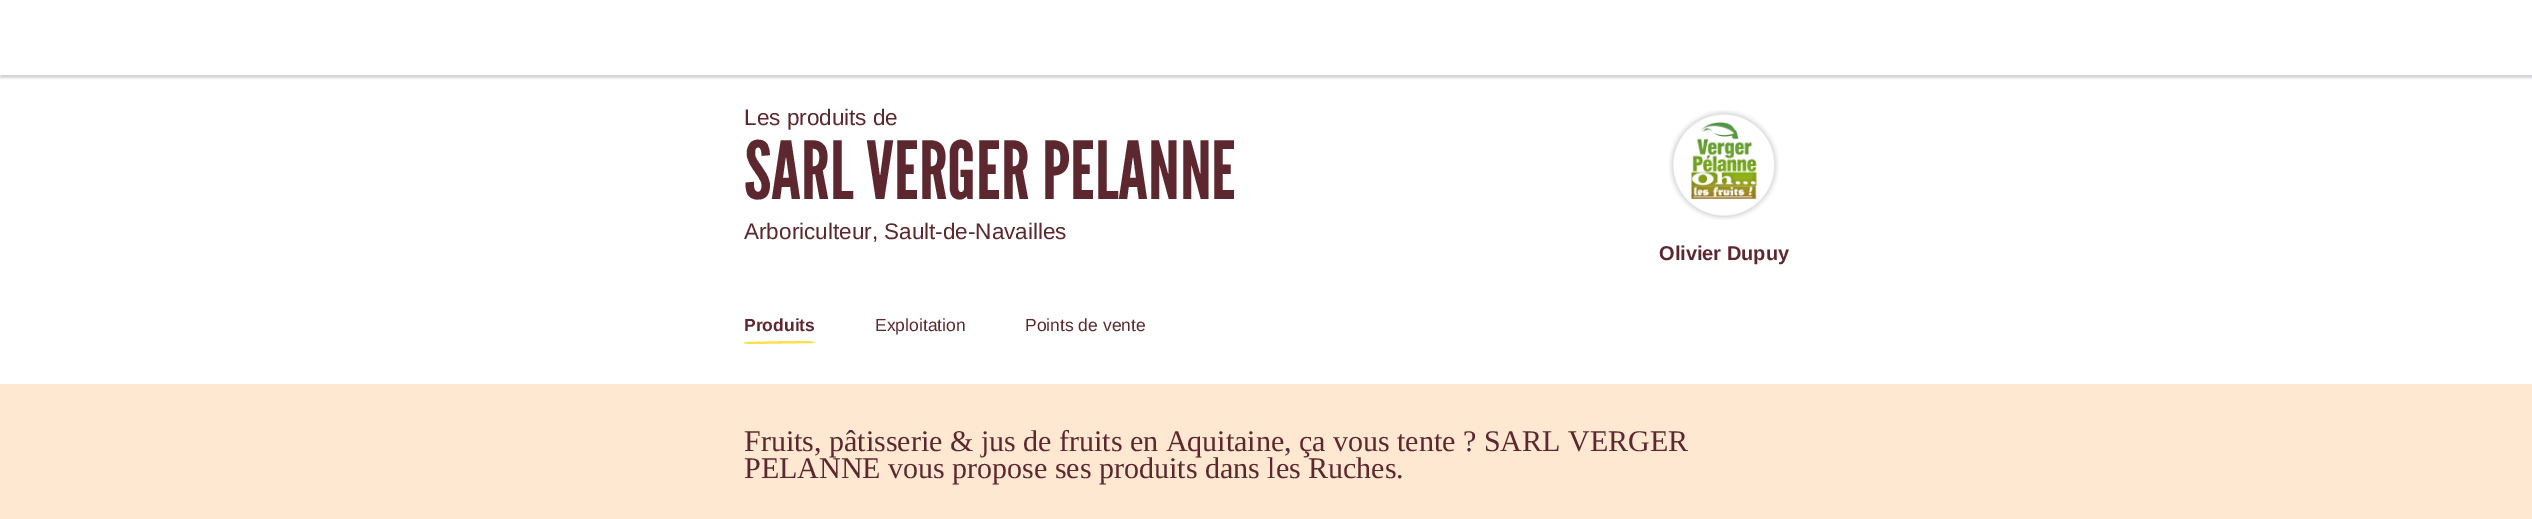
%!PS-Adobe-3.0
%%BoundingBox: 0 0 2532 519
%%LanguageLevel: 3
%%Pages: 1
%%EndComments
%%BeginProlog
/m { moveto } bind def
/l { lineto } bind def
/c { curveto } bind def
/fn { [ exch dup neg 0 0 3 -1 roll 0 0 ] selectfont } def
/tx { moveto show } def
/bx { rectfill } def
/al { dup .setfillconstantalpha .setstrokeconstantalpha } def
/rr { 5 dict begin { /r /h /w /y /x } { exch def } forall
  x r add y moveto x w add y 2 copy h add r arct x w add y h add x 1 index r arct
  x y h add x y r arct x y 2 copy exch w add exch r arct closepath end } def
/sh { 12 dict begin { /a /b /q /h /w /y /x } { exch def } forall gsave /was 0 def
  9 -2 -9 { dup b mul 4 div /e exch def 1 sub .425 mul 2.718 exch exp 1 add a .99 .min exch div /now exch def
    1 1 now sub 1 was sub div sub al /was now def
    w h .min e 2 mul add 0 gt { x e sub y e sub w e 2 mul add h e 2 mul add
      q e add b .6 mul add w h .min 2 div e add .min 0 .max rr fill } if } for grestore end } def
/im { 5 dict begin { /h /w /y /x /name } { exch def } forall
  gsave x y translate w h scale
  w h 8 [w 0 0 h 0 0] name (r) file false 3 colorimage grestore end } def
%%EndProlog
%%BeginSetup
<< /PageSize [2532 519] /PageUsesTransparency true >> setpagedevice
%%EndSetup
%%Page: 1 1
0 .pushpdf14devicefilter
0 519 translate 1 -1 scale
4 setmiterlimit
1 0.91 0.824 setrgbcolor
0 0 2532 519 bx
1 setgray
0 75 2532 309 bx
0.176 0.157 0.275 setrgbcolor
0 3 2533 75 0 1 0.2 sh
1 setgray
0 0 2532 75 bx
/LiberationSans-Regular 22.5 fn
0.361 0.153 0.184 setrgbcolor
(Les produits de) 744 125 tx
/LeagueGothic-Regular 80 fn
(SARL VERGER PELANNE) 744 199 tx
/LiberationSans-Regular 22.5 fn
(Arboriculteur, Sault-de-Navailles) 744 239 tx
(image0.raw) 1669 110 110 110 im
/LiberationSans-Bold 20 fn
(Olivier Dupuy) 1659 260 tx
/LiberationSans-Bold 17.5 fn
(Produits) 744 331 tx
1 0.875 0.302 setrgbcolor
814 342 m 813 342 812 342 813 342 c 811 341 l 788 341 l 748 342 l 745 342 l 744 343 l 743 344 752 344 753 344 c 749 344 l 813 343 l 815 343 815 342 813 342 c 814 342 l eofill
/LiberationSans-Regular 17.5 fn
0.361 0.153 0.184 setrgbcolor
(Exploitation) 875 331 tx
(Points de vente) 1025 331 tx
/LiberationSerif-Regular 30 fn
(Fruits, pâtisserie & jus de fruits en Aquitaine, ça vous tente ? SARL VERGER) 744 451 tx
(PELANNE vous propose ses produits dans les Ruches.) 744 478 tx
.poppdf14devicefilter showpage
%%EOF
